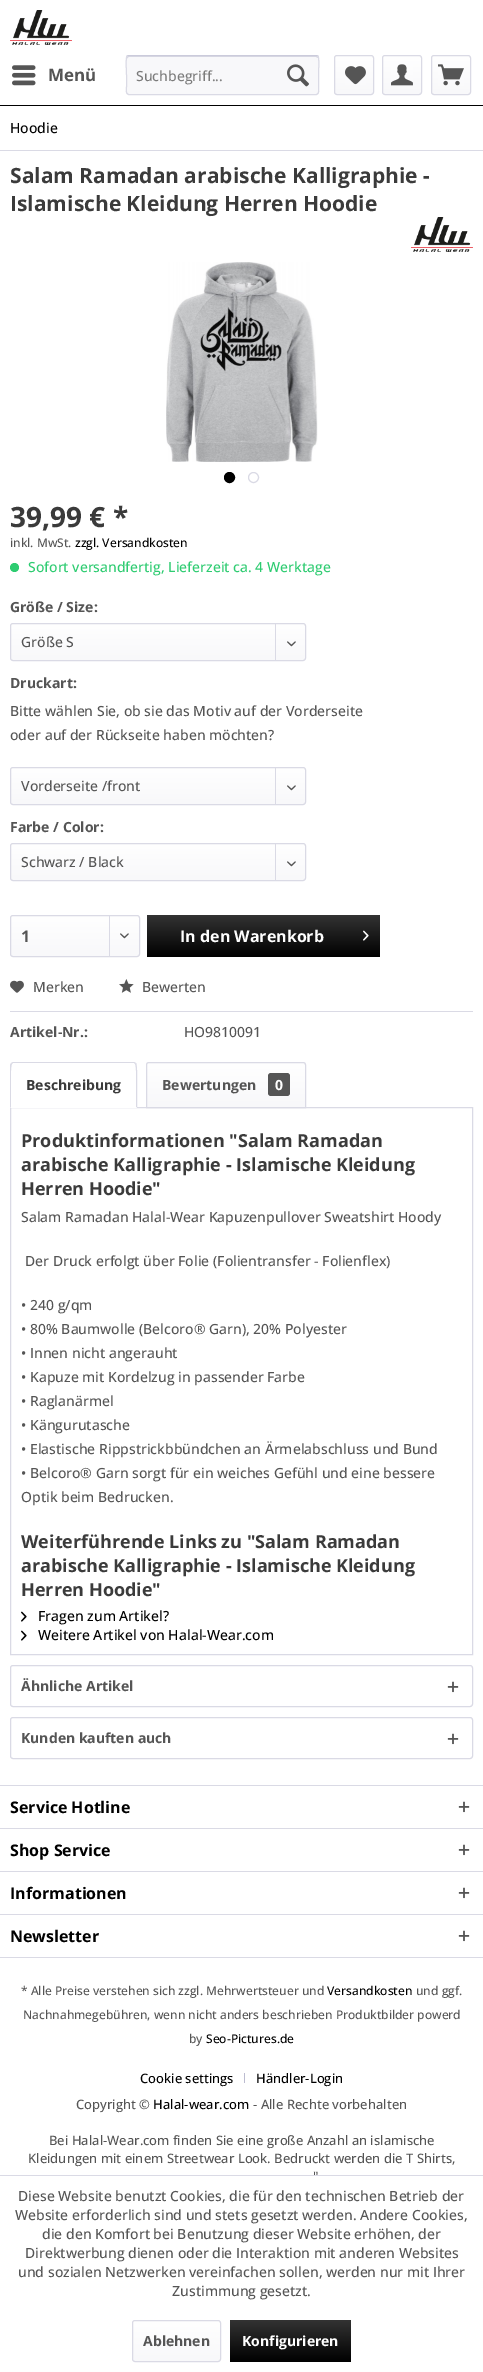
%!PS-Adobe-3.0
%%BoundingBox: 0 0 483 2372
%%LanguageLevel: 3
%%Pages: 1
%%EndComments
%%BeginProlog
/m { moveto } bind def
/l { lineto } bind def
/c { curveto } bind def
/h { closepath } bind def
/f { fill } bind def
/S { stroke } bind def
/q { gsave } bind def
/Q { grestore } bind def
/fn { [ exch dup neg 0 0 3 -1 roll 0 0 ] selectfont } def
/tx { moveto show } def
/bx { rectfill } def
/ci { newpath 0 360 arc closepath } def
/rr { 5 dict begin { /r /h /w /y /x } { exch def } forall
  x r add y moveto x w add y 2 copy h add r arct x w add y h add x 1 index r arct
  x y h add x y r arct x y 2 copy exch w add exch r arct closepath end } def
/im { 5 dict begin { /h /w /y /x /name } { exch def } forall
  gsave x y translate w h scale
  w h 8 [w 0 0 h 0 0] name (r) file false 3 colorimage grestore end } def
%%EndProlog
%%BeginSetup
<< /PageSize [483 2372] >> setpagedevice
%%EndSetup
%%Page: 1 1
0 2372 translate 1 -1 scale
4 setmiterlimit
1 setgray
0 0 483 2372 bx
0 setgray
0 105 483 1 bx
(image0.raw) 10 10 62 35 im
(image1.raw) 12 65 24 21 im
/OpenSans-Bold 17 fn
0.333 setgray
(Menü) 48 81 tx
0.973 0.973 0.98 setrgbcolor
126 55 193 40 3 rr f
0.855 0.855 0.898 setrgbcolor
129 57 m 316 57 l 318 58 l 318 59 l 318 58 l 318 57 317 56 316 56 c 129 56 l 128 56 127 57 127 58 c 127 59 l 127 58 128 57 129 57 c h f
0.796 0.796 0.859 setrgbcolor
127 56 m 129 55.5 l 316 55.5 l 318 56 l S
0.855 0.855 0.898 setrgbcolor
318 56 m 319.5 58 318.5 72 318.5 75 c 318.5 86.5 l 318.5 88 320 94.5 316 94.5 c 129 94.5 l 125 94.5 126.5 88 126.5 86.5 c 126.5 75 l 126.5 72 125.5 58 127 56 c S
/OpenSans-Medium 14 fn
0.482 setgray
(Suchbegriff...) 136 81 tx
(image2.raw) 287 64 22 23 im
q 335 56 38 38 2 rr clip newpath
<< /ShadingType 2 /ColorSpace /DeviceRGB /Coords [354 56 354 94] /Extend [true true] /Function << /FunctionType 2 /Domain [0 1] /C0 [1 1 1] /C1 [0.973 0.973 0.98] /N 1 >> >> shfill Q
0.855 0.855 0.898 setrgbcolor
334.5 55.5 39 39 2.5 rr S
(image3.raw) 345 66 21 19 im
q 383 56 38 38 2 rr clip newpath
<< /ShadingType 2 /ColorSpace /DeviceRGB /Coords [402 56 402 94] /Extend [true true] /Function << /FunctionType 2 /Domain [0 1] /C0 [1 1 1] /C1 [0.973 0.973 0.98] /N 1 >> >> shfill Q
382.5 55.5 39 39 2.5 rr S
(image4.raw) 391 64 22 22 im
q 432 56 38 38 2 rr clip newpath
<< /ShadingType 2 /ColorSpace /DeviceRGB /Coords [451 56 451 94] /Extend [true true] /Function << /FunctionType 2 /Domain [0 1] /C0 [1 1 1] /C1 [0.973 0.973 0.98] /N 1 >> >> shfill Q
431.5 55.5 39 39 2.5 rr S
(image5.raw) 438 64 26 22 im
0 150 483 1 bx
0 setgray
(Hoodie) 10 133 tx
/OpenSans-Bold 21 fn
0.231 setgray
(Salam Ramadan arabische Kalligraphie -) 10 183 tx
(Islamische Kleidung Herren Hoodie) 10 211 tx
(image6.raw) 411 217 62 35 im
(image7.raw) 166 262 152 200 im
0 setgray
229.5 477.5 5 ci q f Q
S
0.855 0.855 0.898 setrgbcolor
253.5 477.5 5 ci S
/OpenSans-Bold 28 fn
0.231 setgray
(39,99 € *) 10 527 tx
/OpenSans-Medium 12 fn
0.333 setgray
(inkl. MwSt.) 10 547 tx
0 setgray
(zzgl. Versandkosten) 75 547 tx
0.18 0.8 0.443 setrgbcolor
14.5 567.5 4.5 ci f
/OpenSans-Medium 14 fn
(Sofort versandfertig, Lieferzeit ca. 4 Werktage) 28 572 tx
/OpenSans-Bold 14 fn
0.333 setgray
(Größe / Size:) 10 612 tx
q 11 624 294 36 2 rr clip newpath
<< /ShadingType 2 /ColorSpace /DeviceRGB /Coords [158 624 158 660] /Extend [true true] /Function << /FunctionType 2 /Domain [0 1] /C0 [1 1 1] /C1 [0.973 0.973 0.98] /N 1 >> >> shfill Q
0.855 0.855 0.898 setrgbcolor
10.5 623.5 295 37 2.5 rr S
/OpenSans-Medium 14 fn
0.333 setgray
(Größe S) 21 647 tx
0.855 0.855 0.898 setrgbcolor
275 624 1 36 bx
(image8.raw) 287 641 9 6 im
/OpenSans-Bold 14 fn
0.333 setgray
(Druckart:) 10 688 tx
/OpenSans-Medium 14 fn
(Bitte wählen Sie, ob sie das Motiv auf der Vorderseite) 10 716 tx
(oder auf der Rückseite haben möchten?) 10 740 tx
q 11 768 294 36 2 rr clip newpath
<< /ShadingType 2 /ColorSpace /DeviceRGB /Coords [158 768 158 804] /Extend [true true] /Function << /FunctionType 2 /Domain [0 1] /C0 [1 1 1] /C1 [0.973 0.973 0.98] /N 1 >> >> shfill Q
0.855 0.855 0.898 setrgbcolor
10.5 767.5 295 37 2.5 rr S
0.333 setgray
(Vorderseite /front) 21 791 tx
0.855 0.855 0.898 setrgbcolor
275 768 1 36 bx
(image8.raw) 287 785 9 6 im
/OpenSans-Bold 14 fn
0.333 setgray
(Farbe / Color:) 10 832 tx
q 11 844 294 36 2 rr clip newpath
<< /ShadingType 2 /ColorSpace /DeviceRGB /Coords [158 844 158 880] /Extend [true true] /Function << /FunctionType 2 /Domain [0 1] /C0 [1 1 1] /C1 [0.973 0.973 0.98] /N 1 >> >> shfill Q
0.855 0.855 0.898 setrgbcolor
10.5 843.5 295 37 2.5 rr S
/OpenSans-Medium 14 fn
0.333 setgray
(Schwarz / Black) 21 867 tx
0.855 0.855 0.898 setrgbcolor
275 844 1 36 bx
(image8.raw) 287 861 9 6 im
q 11 916 128 40 2 rr clip newpath
<< /ShadingType 2 /ColorSpace /DeviceRGB /Coords [75 916 75 956] /Extend [true true] /Function << /FunctionType 2 /Domain [0 1] /C0 [1 1 1] /C1 [0.973 0.973 0.98] /N 1 >> >> shfill Q
10.5 915.5 129 41 2.5 rr S
/OpenSans-Bold 16 fn
0.333 setgray
(1) 21 942 tx
0.855 0.855 0.898 setrgbcolor
109 916 1 40 bx
(image9.raw) 120 933 9 6 im
q 147 915 233 42 3 rr clip newpath
<< /ShadingType 2 /ColorSpace /DeviceRGB /Coords [264 915 264 957] /Extend [true true] /Function << /FunctionType 2 /Domain [0 1] /C0 [0.2 0.2 0.2] /C1 [0 0 0] /N 1 >> >> shfill Q
1 setgray
(In den Warenkorb) 180 942 tx
(image10.raw) 363 930 6 11 im
0.855 0.855 0.898 setrgbcolor
10 1011 463 1 bx
(image11.raw) 10 980 14 13 im
/OpenSans-Medium 14 fn
0.333 setgray
(Merken) 33 992 tx
(image12.raw) 119 979 15 14 im
(Bewerten) 142 992 tx
/OpenSans-Bold 14 fn
(Artikel-Nr.:) 10 1037 tx
/OpenSans-Medium 14 fn
(HO9810091) 184 1037 tx
0.855 0.855 0.898 setrgbcolor
10.5 1107.5 462 547 rectstroke
1 setgray
13 1062 m 134 1062 l 135.5 1062 137 1063.5 137 1065 c 137 1108 l 10 1108 l 10 1065 l 10 1063.5 11.5 1062 13 1062 c h f
0.855 0.855 0.898 setrgbcolor
13 1062 m 11 1063 l 12 1064 l 13 1063 l 134 1063 l 135 1064 l 136 1063 l 134 1062 l h f
137 1108 m 137 1103 138 1065 136 1063 c 135 1064 l 137 1065 136 1102 136 1107 c h f
1 setgray
137 1108 m 136 1107 l 11 1107 l 10 1108 l h f
0.855 0.855 0.898 setrgbcolor
10 1108 m 11 1107 l 11 1102 10 1065 12 1064 c 11 1063 l 10 1065 l h f
/OpenSans-Bold 14 fn
0.231 setgray
(Beschreibung) 26 1090 tx
q 149 1063 m 303 1063 l 304 1063 305 1064 305 1065 c 305 1107 l 147 1107 l 147 1065 l 147 1064 148 1063 149 1063 c h clip newpath
<< /ShadingType 2 /ColorSpace /DeviceRGB /Coords [226 1063 226 1107] /Extend [true true] /Function << /FunctionType 2 /Domain [0 1] /C0 [1 1 1] /C1 [0.973 0.973 0.98] /N 1 >> >> shfill Q
0.855 0.855 0.898 setrgbcolor
149 1062.5 m 303 1062.5 l 304.5 1062.5 305.5 1063.5 305.5 1065 c 305.5 1107.5 l 146.5 1107.5 l 146.5 1065 l 146.5 1063.5 147.5 1062.5 149 1062.5 c h S
0.333 setgray
(Bewertungen) 162 1090 tx
268 1073 22 23 3 rr f
1 setgray
(0) 275 1090 tx
/OpenSans-Bold 18 fn
0.231 setgray
(Produktinformationen "Salam Ramadan) 21 1147 tx
(arabische Kalligraphie - Islamische Kleidung) 21 1171 tx
(Herren Hoodie") 21 1195 tx
/OpenSans-Medium 14 fn
0.333 setgray
(Salam Ramadan Halal-Wear Kapuzenpullover Sweatshirt Hoody) 21 1222 tx
(Der Druck erfolgt über Folie \(Folientransfer - Folienflex\)) 25 1266 tx
(• 240 g/qm) 21 1310 tx
(• 80% Baumwolle \(Belcoro® Garn\), 20% Polyester) 21 1334 tx
(• Innen nicht angerauht) 21 1358 tx
(• Kapuze mit Kordelzug in passender Farbe) 21 1382 tx
(• Raglanärmel) 21 1406 tx
(• Kängurutasche) 21 1430 tx
(• Elastische Rippstrickbbündchen an Ärmelabschluss und Bund) 21 1454 tx
(• Belcoro® Garn sorgt für ein weiches Gefühl und eine bessere) 21 1478 tx
(Optik beim Bedrucken.) 21 1502 tx
/OpenSans-Bold 18 fn
0.231 setgray
(Weiterführende Links zu "Salam Ramadan) 21 1548 tx
(arabische Kalligraphie - Islamische Kleidung) 21 1572 tx
(Herren Hoodie") 21 1596 tx
(image13.raw) 21 1611 6 11 im
/OpenSans-Medium 14 fn
0 setgray
(Fragen zum Artikel?) 38 1621 tx
(image13.raw) 21 1630 6 11 im
(Weitere Artikel von Halal-Wear.com) 38 1640 tx
0.855 0.855 0.898 setrgbcolor
10.5 1665.5 462 41 2.5 rr S
/OpenSans-Bold 14 fn
0.333 setgray
(Ähnliche Artikel) 21 1691 tx
(image14.raw) 447 1681 12 12 im
0.855 0.855 0.898 setrgbcolor
10.5 1717.5 462 41 2.5 rr S
0.333 setgray
(Kunden kauften auch) 21 1743 tx
(image14.raw) 447 1733 12 12 im
0.855 0.855 0.898 setrgbcolor
0 1785 483 1 bx
/OpenSans-Bold 16 fn
0 setgray
(Service Hotline) 10 1813 tx
(image14.raw) 458 1801 12 12 im
0.855 0.855 0.898 setrgbcolor
0 1828 483 1 bx
0 setgray
(Shop Service) 10 1856 tx
(image14.raw) 458 1844 12 12 im
0.855 0.855 0.898 setrgbcolor
0 1871 483 1 bx
0 setgray
(Informationen) 10 1899 tx
(image14.raw) 458 1887 12 12 im
0.855 0.855 0.898 setrgbcolor
0 1914 483 1 bx
0 1957 483 1 bx
0 setgray
(Newsletter) 10 1942 tx
(image14.raw) 458 1930 12 12 im
/OpenSans-Medium 12 fn
0.333 setgray
(* Alle Preise verstehen sich zzgl. Mehrwertsteuer und) 21 1995 tx
0 setgray
(Versandkosten) 327 1995 tx
0.333 setgray
(und ggf.) 416 1995 tx
(Nachnahmegebühren, wenn nicht anders beschrieben Produktbilder powerd) 23 2019 tx
(by) 189 2043 tx
0 setgray
(Seo-Pictures.de) 206 2043 tx
/OpenSans-Medium 13 fn
(Cookie settings) 140 2083 tx
0.737 0.737 0.816 setrgbcolor
244 2073 1 10 bx
0 setgray
(Händler-Login) 256 2083 tx
0.333 setgray
(Copyright ©) 76 2109 tx
0 setgray
(Halal-wear.com) 153 2109 tx
0.333 setgray
(- Alle Rechte vorbehalten) 253 2109 tx
(Bei Halal-Wear.com finden Sie eine große Anzahl an islamische) 49 2145 tx
(Kleidungen mit einem Streetwear Look. Bedruckt werden die T Shirts,) 28 2163 tx
(") 313 2181 tx
0.855 0.855 0.898 setrgbcolor
0 2175 483 1 bx
/OpenSans-Medium 14 fn
0.333 setgray
(Diese Website benutzt Cookies, die für den technischen Betrieb der) 18 2201 tx
(Website erforderlich sind und stets gesetzt werden. Andere Cookies,) 15 2220 tx
(die den Komfort bei Benutzung dieser Website erhöhen, der) 42 2239 tx
(Direktwerbung dienen oder die Interaktion mit anderen Websites) 25 2258 tx
(und sozialen Netzwerken vereinfachen sollen, werden nur mit Ihrer) 18 2277 tx
(Zustimmung gesetzt.) 172 2296 tx
q 133 2321 87 40 2 rr clip newpath
<< /ShadingType 2 /ColorSpace /DeviceRGB /Coords [177 2321 177 2361] /Extend [true true] /Function << /FunctionType 2 /Domain [0 1] /C0 [1 1 1] /C1 [0.973 0.973 0.98] /N 1 >> >> shfill Q
0.855 0.855 0.898 setrgbcolor
132.5 2320.5 88 41 2.5 rr S
/OpenSans-Bold 14 fn
0.333 setgray
(Ablehnen) 143 2346 tx
q 230 2320 121 42 3 rr clip newpath
<< /ShadingType 2 /ColorSpace /DeviceRGB /Coords [291 2320 291 2362] /Extend [true true] /Function << /FunctionType 2 /Domain [0 1] /C0 [0.2 0.2 0.2] /C1 [0 0 0] /N 1 >> >> shfill Q
1 setgray
(Konfigurieren) 242 2346 tx
showpage
%%EOF
